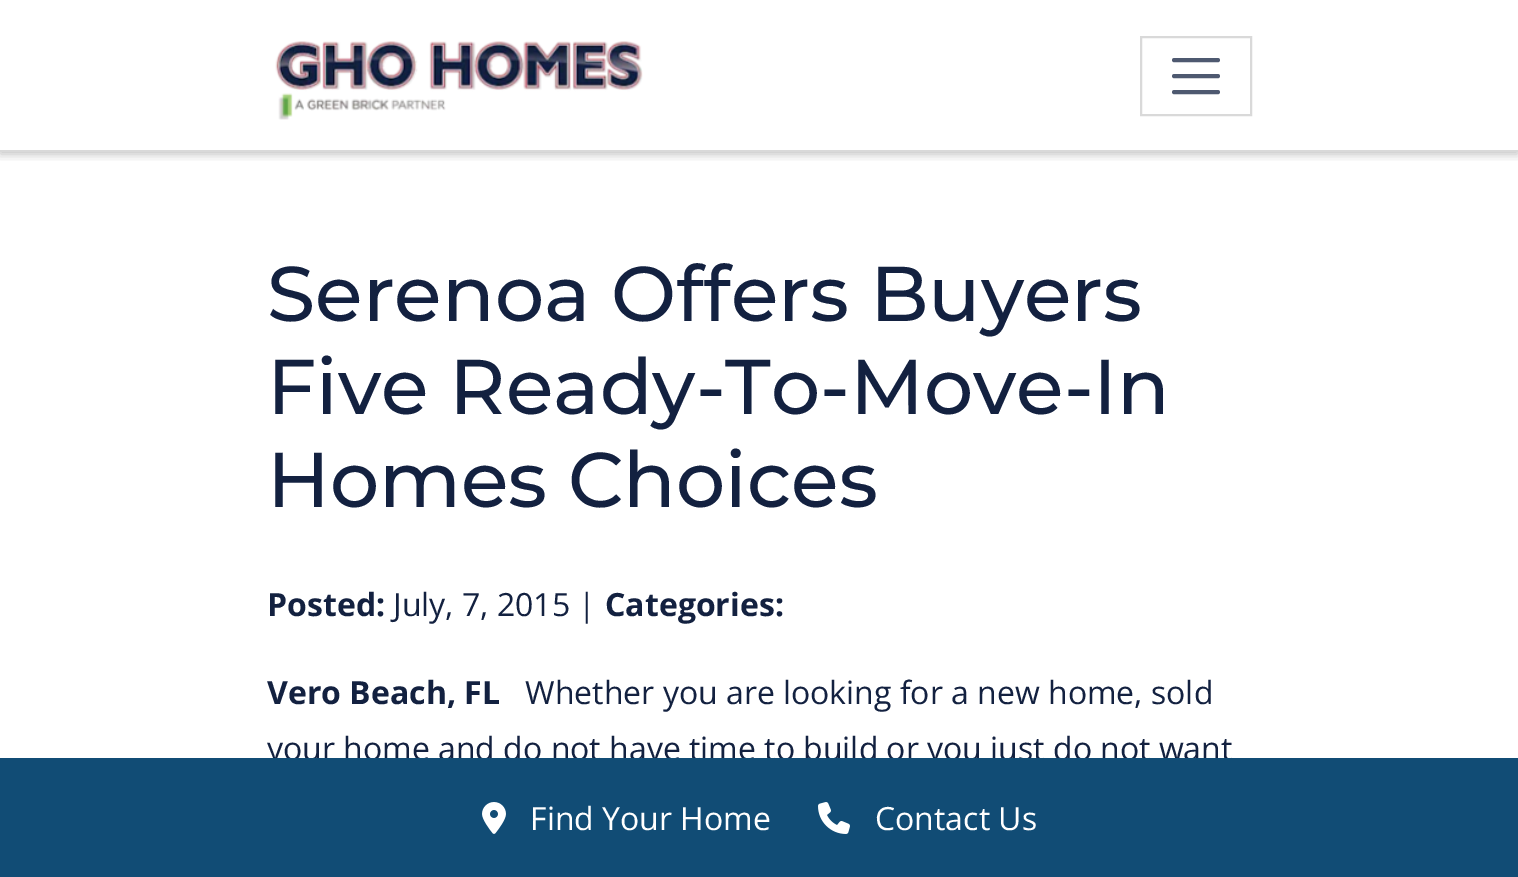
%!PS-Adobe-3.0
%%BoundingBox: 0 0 1518 877
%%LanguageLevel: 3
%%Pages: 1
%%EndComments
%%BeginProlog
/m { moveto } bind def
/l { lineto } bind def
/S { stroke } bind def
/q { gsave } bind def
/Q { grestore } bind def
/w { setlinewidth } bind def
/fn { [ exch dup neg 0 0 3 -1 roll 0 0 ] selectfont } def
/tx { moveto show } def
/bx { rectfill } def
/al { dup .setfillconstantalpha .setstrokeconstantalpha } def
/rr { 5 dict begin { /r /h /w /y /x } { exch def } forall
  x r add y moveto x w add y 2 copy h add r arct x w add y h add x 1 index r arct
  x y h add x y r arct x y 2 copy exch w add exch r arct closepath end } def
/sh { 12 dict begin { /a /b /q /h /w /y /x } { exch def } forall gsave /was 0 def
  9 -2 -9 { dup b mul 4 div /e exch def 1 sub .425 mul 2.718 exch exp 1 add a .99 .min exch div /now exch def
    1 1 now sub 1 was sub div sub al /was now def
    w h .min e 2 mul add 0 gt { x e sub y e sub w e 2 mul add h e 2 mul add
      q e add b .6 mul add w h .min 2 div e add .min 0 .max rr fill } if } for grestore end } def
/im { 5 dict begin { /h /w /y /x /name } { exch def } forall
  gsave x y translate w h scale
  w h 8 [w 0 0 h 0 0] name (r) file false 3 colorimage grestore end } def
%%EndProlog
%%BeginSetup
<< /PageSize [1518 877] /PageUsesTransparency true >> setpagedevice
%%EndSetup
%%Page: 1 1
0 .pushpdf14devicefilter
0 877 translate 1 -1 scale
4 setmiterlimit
1 setgray
0 0 1518 877 bx
q
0 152 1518 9 rectclip
0 setgray
0 2 1518 152 0 5 0.25 sh
Q
(image0.raw) 275 41 368 79 im
0.851 setgray
2 w
1141 37 110 78 rectstroke
0.306 0.349 0.439 setrgbcolor
4 w
1 setlinecap
1174 60 m 1218 60 l 1174 76 m 1218 76 l 1174 92 m 1218 92 l S
0.851 setgray
0 150 1518 2 bx
/Montserrat-Medium 77.5 fn
0.075 0.129 0.251 setrgbcolor
(Serenoa Offers Buyers) 267 321 tx
(Five Ready-To-Move-In) 267 414 tx
(Homes Choices) 267 507 tx
/OpenSans-Bold 32 fn
(Posted:) 267 616 tx
/OpenSans-Regular 32 fn
(July, 7, 2015 |) 393 616 tx
/OpenSans-Bold 32 fn
(Categories:) 605 616 tx
(Vero Beach, FL) 267 704 tx
/OpenSans-Regular 32 fn
(Whether you are looking for a new home, sold) 525 704 tx
(your home and do not have time to build or you just do not want) 267 760 tx
0.067 0.298 0.459 setrgbcolor
0 758 1518 119 bx
(image1.raw) 482 802 24 32 im
1 setgray
(Find Your Home) 530 830 tx
(image2.raw) 818 802 32 32 im
(Contact Us) 875 830 tx
.poppdf14devicefilter showpage
%%EOF
